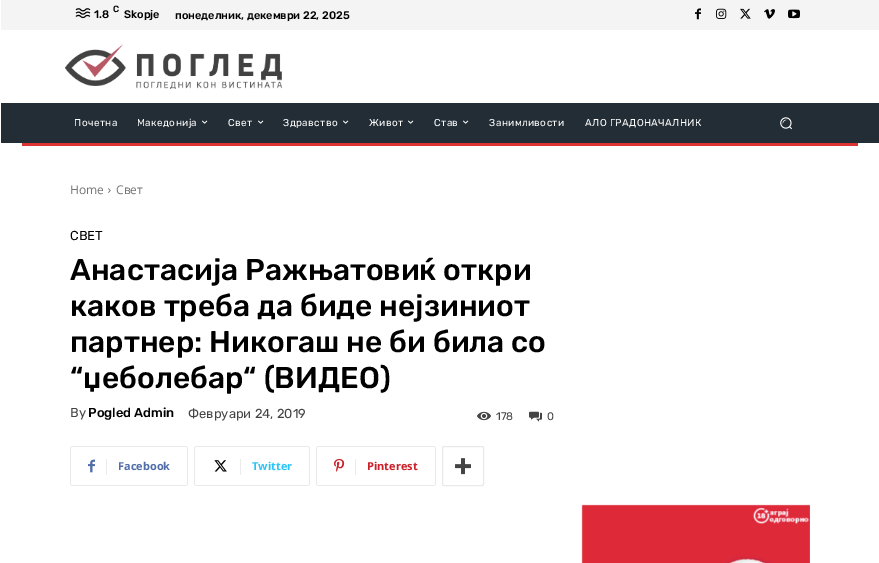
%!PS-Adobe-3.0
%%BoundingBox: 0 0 879 563
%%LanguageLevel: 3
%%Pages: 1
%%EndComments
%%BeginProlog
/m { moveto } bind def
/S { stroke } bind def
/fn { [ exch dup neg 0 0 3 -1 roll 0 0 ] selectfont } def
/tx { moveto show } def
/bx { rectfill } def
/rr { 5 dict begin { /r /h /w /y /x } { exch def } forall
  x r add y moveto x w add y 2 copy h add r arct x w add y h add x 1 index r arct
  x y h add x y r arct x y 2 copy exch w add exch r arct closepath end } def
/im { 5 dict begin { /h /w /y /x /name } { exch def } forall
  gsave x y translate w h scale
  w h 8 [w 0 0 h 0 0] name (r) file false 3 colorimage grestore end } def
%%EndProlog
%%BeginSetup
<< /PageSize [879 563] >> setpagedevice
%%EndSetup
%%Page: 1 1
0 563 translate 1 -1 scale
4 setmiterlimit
1 setgray
0 0 879 563 bx
0.957 setgray
1 0 878 30 bx
(image0.raw) 75 8 16 11 im
/Rubik-Medium 9 fn
0 setgray
(C) 113 12 tx
/Rubik-Medium 11 fn
(1.8) 94 18 tx
(Skopje) 124 18 tx
(понеделник, декември 22, 2025) 175 19 tx
(image1.raw) 695 8 6 12 im
(image2.raw) 716 8 11 11 im
(image3.raw) 740 8 11 11 im
(image4.raw) 764 9 11 10 im
(image5.raw) 788 9 12 10 im
(image6.raw) 65 44 217 45 im
0.137 0.176 0.208 setrgbcolor
1 103 878 40 bx
/Rubik-Regular 10 fn
1 setgray
74 126 m 0.4 0 (Почетна) ashow
137 126 m 0.4 0 (Македонија) ashow
(image7.raw) 202 120 6 4 im
228 126 m 0.4 0 (Свет) ashow
(image7.raw) 258 120 6 4 im
283 126 m 0.4 0 (Здравство) ashow
(image7.raw) 343 120 6 4 im
369 126 m 0.4 0 (Живот) ashow
(image7.raw) 408 120 6 4 im
434 126 m 0.4 0 (Став) ashow
(image7.raw) 463 120 6 4 im
489 126 m 0.4 0 (Занимливости) ashow
585 126 m 0.4 0 (АЛО ГРАДОНАЧАЛНИК) ashow
(image8.raw) 780 117 12 13 im
0.867 0.2 0.2 setrgbcolor
22 143 836 3 bx
/OpenSans-Regular 12 fn
0.455 setgray
(Home) 70 194 tx
(image9.raw) 108 188 3 5 im
(Свет) 116 194 tx
/Rubik-Regular 13 fn
0 setgray
(СВЕТ) 70 240 tx
/Rubik-Medium 30 fn
(Анастасија Ражњатовиќ откри) 70 280 tx
(каков треба да биде нејзиниот) 70 316 tx
(партнер: Никогаш не би била со) 70 352 tx
(“џебoлебар“ \(ВИДЕО\)) 70 388 tx
/Rubik-Regular 13 fn
0.267 setgray
(By) 70 417 tx
/Rubik-Medium 13 fn
0 setgray
(Pogled Admin) 88 417 tx
/Rubik-Regular 13 fn
0.267 setgray
(Февруари 24, 2019) 188 418 tx
(image10.raw) 477 411 14 10 im
/Rubik-Regular 11 fn
(178) 496 420 tx
(image11.raw) 529 411 13 11 im
(0) 547 420 tx
0.914 setgray
70 447 1 38 bx
(image12.raw) 88 459 7 14 im
71 446 116 1 bx
187 447 1 38 bx
71 485 116 1 bx
0.922 setgray
106 459 1 16 bx
/OpenSans-Bold 11 fn
0.318 0.431 0.671 setrgbcolor
(Facebook) 118 470 tx
0.914 setgray
194 447 1 38 bx
(image13.raw) 214 460 13 12 im
195 446 114 1 bx
309 447 1 38 bx
195 485 114 1 bx
0.922 setgray
240 459 1 16 bx
0.161 0.773 0.965 setrgbcolor
(Twitter) 252 470 tx
0.914 setgray
316 447 1 38 bx
(image14.raw) 334 458 11 14 im
317 446 118 1 bx
435 447 1 38 bx
317 485 118 1 bx
0.922 setgray
355 459 1 16 bx
0.792 0.129 0.165 setrgbcolor
(Pinterest) 367 470 tx
0.914 setgray
442.5 446.5 41 39 1.5 rr S
(image15.raw) 455 458 16 17 im
(image16.raw) 581 504 229 59 im
showpage
%%EOF
